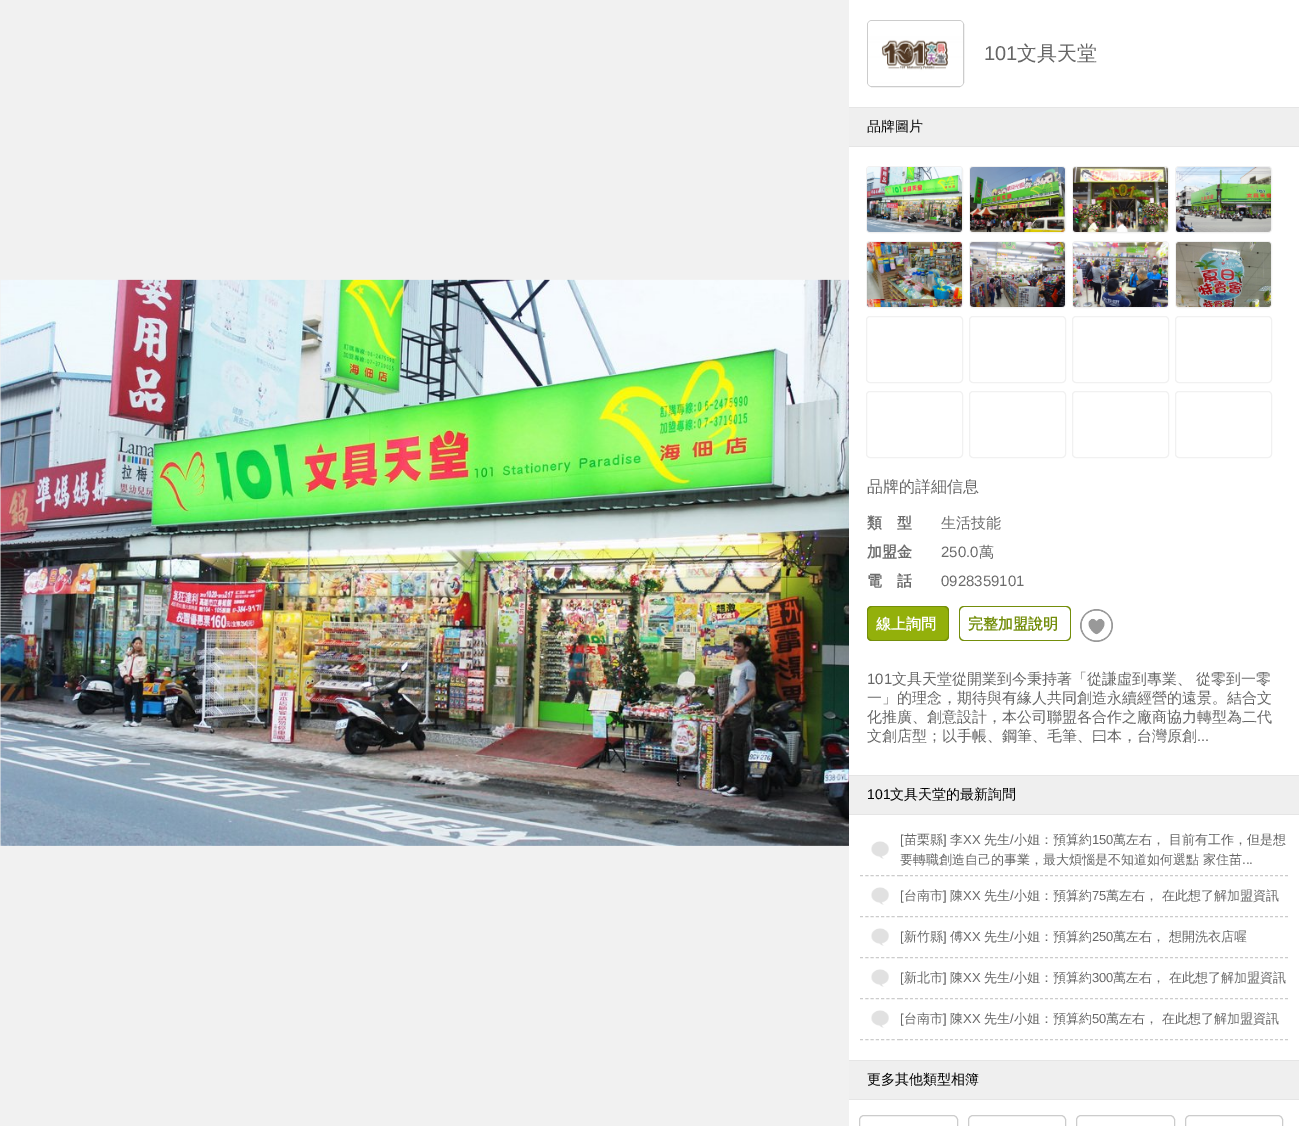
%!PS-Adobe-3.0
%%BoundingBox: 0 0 1299 1126
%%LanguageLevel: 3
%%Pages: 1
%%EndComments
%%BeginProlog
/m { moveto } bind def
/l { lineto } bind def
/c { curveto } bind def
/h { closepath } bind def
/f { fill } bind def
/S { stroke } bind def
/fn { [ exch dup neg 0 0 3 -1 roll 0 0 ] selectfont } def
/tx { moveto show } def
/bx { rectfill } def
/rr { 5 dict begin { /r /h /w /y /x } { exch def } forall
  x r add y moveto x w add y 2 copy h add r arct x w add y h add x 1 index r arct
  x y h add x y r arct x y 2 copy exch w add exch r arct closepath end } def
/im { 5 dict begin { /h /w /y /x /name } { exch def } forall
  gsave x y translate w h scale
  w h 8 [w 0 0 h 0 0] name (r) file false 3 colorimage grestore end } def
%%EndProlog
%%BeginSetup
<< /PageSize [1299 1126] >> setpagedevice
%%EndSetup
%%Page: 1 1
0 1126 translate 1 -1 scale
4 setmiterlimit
1 setgray
0 0 1299 1126 bx
0.945 setgray
0 0 849 1126 bx
(image0.raw) 0 279 849 567 im
0.8 setgray
867.5 20.5 96 66 4.5 rr S
(image1.raw) 868 21 95 65 im
/LiberationSans-Regular 20 fn
0.4 setgray
(101) 984 60 tx
/WenQuanYiZenHei-Medium 20 fn
(文具天堂) 1017 60 tx
0.937 setgray
849 108 450 38 bx
0.898 setgray
849 107 450 1 bx
849 146 450 1 bx
/WenQuanYiZenHei-Medium 14 fn
0 setgray
(品牌圖片) 867 131 tx
0.945 setgray
866.5 166.5 96 66 3.5 rr S
(image2.raw) 867 167 95 65 im
969.5 166.5 96 66 3.5 rr S
(image3.raw) 970 167 95 65 im
1072.5 166.5 96 66 3.5 rr S
(image4.raw) 1073 167 95 65 im
1175.5 166.5 96 66 3.5 rr S
(image5.raw) 1176 167 95 65 im
866.5 241.5 96 66 3.5 rr S
(image6.raw) 867 242 95 65 im
969.5 241.5 96 66 3.5 rr S
(image7.raw) 970 242 95 65 im
1072.5 241.5 96 66 3.5 rr S
(image8.raw) 1073 242 95 65 im
1175.5 241.5 96 66 3.5 rr S
(image9.raw) 1176 242 95 65 im
866.5 316.5 96 66 3.5 rr S
969.5 316.5 96 66 3.5 rr S
1072.5 316.5 96 66 3.5 rr S
1175.5 316.5 96 66 3.5 rr S
866.5 391.5 96 66 3.5 rr S
969.5 391.5 96 66 3.5 rr S
1072.5 391.5 96 66 3.5 rr S
1175.5 391.5 96 66 3.5 rr S
0.898 setgray
849 775 450 1 bx
/WenQuanYiZenHei-Medium 16 fn
0.4 setgray
(品牌的詳細信息) 867 492 tx
/WenQuanYiZenHei-Bold 15 fn
0.424 setgray
(類　型) 867 528 tx
/WenQuanYiZenHei-Medium 15 fn
(生活技能) 941 528 tx
/WenQuanYiZenHei-Bold 15 fn
(加盟金) 867 557 tx
/LiberationSans-Regular 15 fn
(250.0) 941 557 tx
/WenQuanYiZenHei-Medium 15 fn
(萬) 979 557 tx
/WenQuanYiZenHei-Bold 15 fn
(電　話) 867 586 tx
/LiberationSans-Regular 15 fn
(0928359101) 941 586 tx
0.576 0.69 0.043 setrgbcolor
872 606 m 936 606 l 936 641 l 872 641 l 869 641 867 639 867 636 c 867 611 l 867 608 869 606 872 606 c h f
0.455 0.557 0.043 setrgbcolor
872 606 m 936 606 l 936 641 l 872 641 l 869 641 867 639 867 636 c 867 611 l 867 608 869 606 872 606 c h 872 607 m 936 607 l 936 640 l 872 640 l 870 640 868 638 868 636 c 868 611 l 868 609 870 607 872 607 c h eofill
/WenQuanYiZenHei-Bold 15 fn
1 setgray
(線上詢問) 876 629 tx
0.576 0.69 0.043 setrgbcolor
936 606 m 944 606 l 947 606 949 608 949 611 c 949 636 l 949 639 947 641 944 641 c 936 641 l h f
0.455 0.557 0.043 setrgbcolor
936 606 m 944 606 l 947 606 949 608 949 611 c 949 636 l 949 639 947 641 944 641 c 936 641 l h 936 607 m 944 607 l 946 607 948 609 948 611 c 948 636 l 948 638 946 640 944 640 c 936 640 l h eofill
964 606 m 1058 606 l 1058 641 l 964 641 l 961 641 959 639 959 636 c 959 611 l 959 608 961 606 964 606 c h 964 607 m 1058 607 l 1058 640 l 964 640 l 962 640 960 638 960 636 c 960 611 l 960 609 962 607 964 607 c h eofill
(完整加盟說明) 968 629 tx
1058 606 m 1066 606 l 1069 606 1071 608 1071 611 c 1071 636 l 1071 639 1069 641 1066 641 c 1058 641 l h 1058 607 m 1066 607 l 1068 607 1070 609 1070 611 c 1070 636 l 1070 638 1068 640 1066 640 c 1058 640 l h eofill
(image10.raw) 1080 609 33 33 im
/LiberationSans-Regular 15 fn
0.4 setgray
(101) 867 684 tx
/WenQuanYiZenHei-Medium 15 fn
(文具天堂從開業到今秉持著「從謙虛到專業、 從零到一零) 892 684 tx
(一」的理念，期待與有緣人共同創造永續經營的遠景。結合文) 867 703 tx
(化推廣、創意設計，本公司聯盟各合作之廠商協力轉型為二代) 867 722 tx
(文創店型；以手帳、鋼筆、毛筆、曰本，台灣原創) 867 741 tx
/LiberationSans-Regular 15 fn
(...) 1197 741 tx
0.937 setgray
849 776 450 38 bx
0.898 setgray
849 814 450 1 bx
/LiberationSans-Regular 14 fn
0 setgray
(101) 867 799 tx
/WenQuanYiZenHei-Medium 14 fn
(文具天堂的最新詢問) 890 799 tx
0.8 setgray
[3 2.29] 0 setdash
860 875.5 m 900 875.5 l S
(image11.raw) 871 841 18 18 im
[3 2] 0 setdash
900 875.5 m 1288 875.5 l S
/LiberationSans-Regular 13 fn
0.4 setgray
([) 900 844 tx
/WenQuanYiZenHei-Medium 13 fn
(苗栗縣) 904 844 tx
/LiberationSans-Regular 13 fn
(]) 943 844 tx
/WenQuanYiZenHei-Medium 13 fn
(李) 950 844 tx
/LiberationSans-Regular 13 fn
(XX) 963 844 tx
/WenQuanYiZenHei-Medium 13 fn
(先生) 984 844 tx
/LiberationSans-Regular 13 fn
(/) 1010 844 tx
/WenQuanYiZenHei-Medium 13 fn
(小姐：預算約) 1014 844 tx
/LiberationSans-Regular 13 fn
(150) 1092 844 tx
/WenQuanYiZenHei-Medium 13 fn
(萬左右，) 1113 844 tx
(目前有工作，但是想) 1169 844 tx
(要轉職創造自己的事業，最大煩惱是不知道如何選點 家住苗) 900 864 tx
/LiberationSans-Regular 13 fn
(...) 1242 864 tx
0.8 setgray
[3 2.29] 0 setdash
860 916.5 m 900 916.5 l S
(image11.raw) 871 887 18 18 im
[3 2] 0 setdash
900 916.5 m 1288 916.5 l S
0.4 setgray
([) 900 900 tx
/WenQuanYiZenHei-Medium 13 fn
(台南市) 904 900 tx
/LiberationSans-Regular 13 fn
(]) 943 900 tx
/WenQuanYiZenHei-Medium 13 fn
(陳) 950 900 tx
/LiberationSans-Regular 13 fn
(XX) 963 900 tx
/WenQuanYiZenHei-Medium 13 fn
(先生) 984 900 tx
/LiberationSans-Regular 13 fn
(/) 1010 900 tx
/WenQuanYiZenHei-Medium 13 fn
(小姐：預算約) 1014 900 tx
/LiberationSans-Regular 13 fn
(75) 1092 900 tx
/WenQuanYiZenHei-Medium 13 fn
(萬左右， 在此想了解加盟資訊) 1106 900 tx
0.8 setgray
[3 2.29] 0 setdash
860 957.5 m 900 957.5 l S
(image11.raw) 871 928 18 18 im
[3 2] 0 setdash
900 957.5 m 1288 957.5 l S
/LiberationSans-Regular 13 fn
0.4 setgray
([) 900 941 tx
/WenQuanYiZenHei-Medium 13 fn
(新竹縣) 904 941 tx
/LiberationSans-Regular 13 fn
(]) 943 941 tx
/WenQuanYiZenHei-Medium 13 fn
(傅) 950 941 tx
/LiberationSans-Regular 13 fn
(XX) 963 941 tx
/WenQuanYiZenHei-Medium 13 fn
(先生) 984 941 tx
/LiberationSans-Regular 13 fn
(/) 1010 941 tx
/WenQuanYiZenHei-Medium 13 fn
(小姐：預算約) 1014 941 tx
/LiberationSans-Regular 13 fn
(250) 1092 941 tx
/WenQuanYiZenHei-Medium 13 fn
(萬左右，) 1113 941 tx
(想開洗衣店喔) 1169 941 tx
0.8 setgray
[3 2.29] 0 setdash
860 998.5 m 900 998.5 l S
(image11.raw) 871 969 18 18 im
[3 2] 0 setdash
900 998.5 m 1288 998.5 l S
/LiberationSans-Regular 13 fn
0.4 setgray
([) 900 982 tx
/WenQuanYiZenHei-Medium 13 fn
(新北市) 904 982 tx
/LiberationSans-Regular 13 fn
(]) 943 982 tx
/WenQuanYiZenHei-Medium 13 fn
(陳) 950 982 tx
/LiberationSans-Regular 13 fn
(XX) 963 982 tx
/WenQuanYiZenHei-Medium 13 fn
(先生) 984 982 tx
/LiberationSans-Regular 13 fn
(/) 1010 982 tx
/WenQuanYiZenHei-Medium 13 fn
(小姐：預算約) 1014 982 tx
/LiberationSans-Regular 13 fn
(300) 1092 982 tx
/WenQuanYiZenHei-Medium 13 fn
(萬左右，) 1113 982 tx
(在此想了解加盟資訊) 1169 982 tx
0.8 setgray
[3 2.29] 0 setdash
860 1039.5 m 900 1039.5 l S
(image11.raw) 871 1010 18 18 im
[3 2] 0 setdash
900 1039.5 m 1288 1039.5 l S
/LiberationSans-Regular 13 fn
0.4 setgray
([) 900 1023 tx
/WenQuanYiZenHei-Medium 13 fn
(台南市) 904 1023 tx
/LiberationSans-Regular 13 fn
(]) 943 1023 tx
/WenQuanYiZenHei-Medium 13 fn
(陳) 950 1023 tx
/LiberationSans-Regular 13 fn
(XX) 963 1023 tx
/WenQuanYiZenHei-Medium 13 fn
(先生) 984 1023 tx
/LiberationSans-Regular 13 fn
(/) 1010 1023 tx
/WenQuanYiZenHei-Medium 13 fn
(小姐：預算約) 1014 1023 tx
/LiberationSans-Regular 13 fn
(50) 1092 1023 tx
/WenQuanYiZenHei-Medium 13 fn
(萬左右， 在此想了解加盟資訊) 1106 1023 tx
0.937 setgray
849 1061 450 38 bx
0.898 setgray
849 1060 450 1 bx
849 1099 450 1 bx
/WenQuanYiZenHei-Medium 14 fn
0 setgray
(更多其他類型相簿) 867 1084 tx
0.8 setgray
[] 0 setdash
859.5 1115.5 98 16 4.5 rr S
968.5 1115.5 97 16 4.5 rr S
1076.5 1115.5 98 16 4.5 rr S
1185.5 1115.5 97 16 4.5 rr S
showpage
%%EOF
